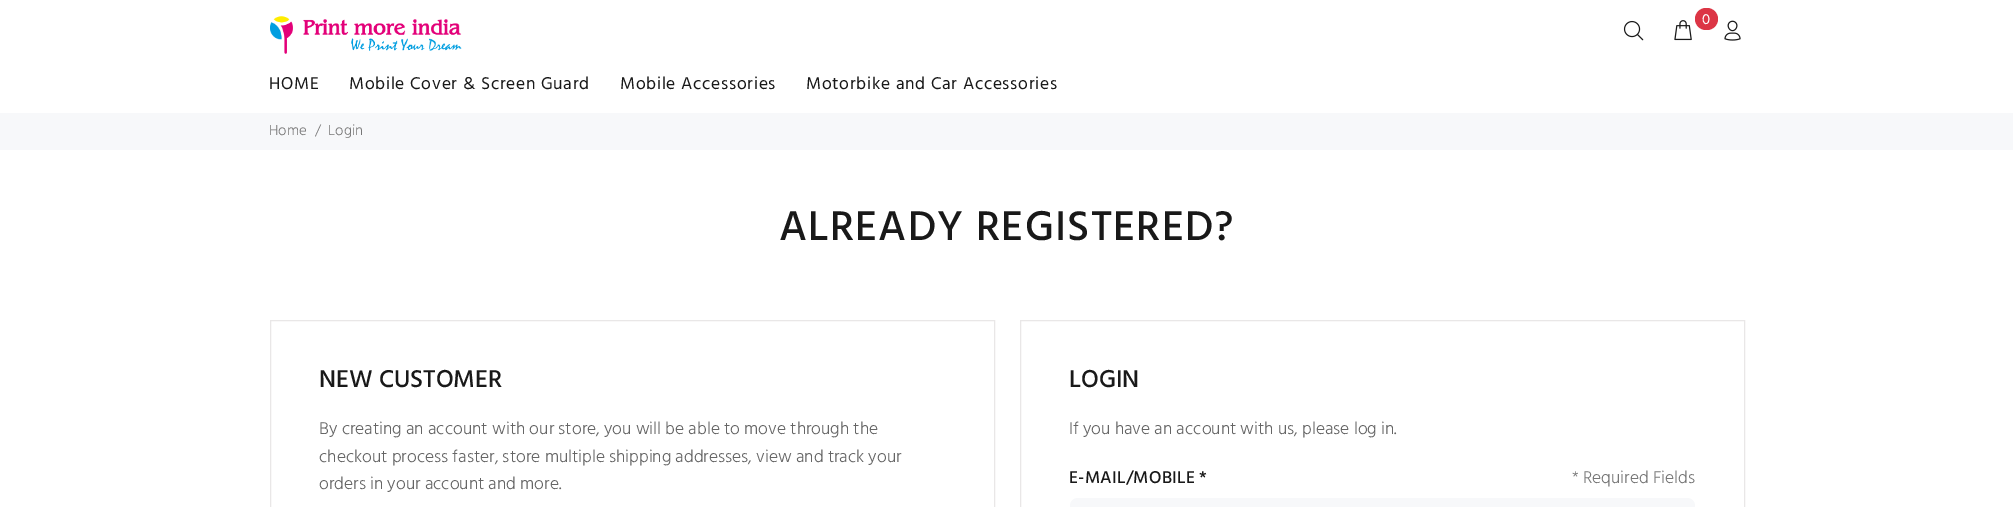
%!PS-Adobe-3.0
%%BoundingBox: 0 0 2013 507
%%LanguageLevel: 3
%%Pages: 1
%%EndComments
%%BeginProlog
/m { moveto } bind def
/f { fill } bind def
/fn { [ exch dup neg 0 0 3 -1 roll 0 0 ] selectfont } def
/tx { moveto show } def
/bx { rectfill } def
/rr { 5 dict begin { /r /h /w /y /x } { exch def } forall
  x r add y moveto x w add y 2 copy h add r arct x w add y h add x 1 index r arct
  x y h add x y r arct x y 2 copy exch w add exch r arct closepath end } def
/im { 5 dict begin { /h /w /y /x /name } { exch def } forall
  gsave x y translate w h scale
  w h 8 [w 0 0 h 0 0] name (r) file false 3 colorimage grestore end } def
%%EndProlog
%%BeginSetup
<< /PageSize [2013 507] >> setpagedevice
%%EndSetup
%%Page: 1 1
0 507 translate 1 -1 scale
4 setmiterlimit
1 setgray
0 0 2013 507 bx
(image0.raw) 270 16 192 38 im
(image1.raw) 1623 20 21 21 im
(image2.raw) 1674 20 18 21 im
0.863 0.208 0.271 setrgbcolor
1695 8 23 22 11 rr f
/Hind-Regular 15 fn
1 setgray
(0) 1702 24 tx
(image3.raw) 1724 20 17 21 im
/Hind-Regular 17.5 fn
0.098 setgray
269 89 m 0.7 0 (HOME) ashow
349 89 m 0.7 0 (Mobile Cover & Screen Guard) ashow
620 89 m 0.7 0 (Mobile Accessories) ashow
806 89 m 0.7 0 (Motorbike and Car Accessories) ashow
0.969 0.973 0.98 setrgbcolor
0 113 2013 37 bx
/Hind-Light 15 fn
0.467 setgray
(Home) 269 135 tx
(/) 315 135 tx
(Login) 328 135 tx
/Hind-Medium 42.5 fn
0.098 setgray
779 240 m 1.25 0 (ALREADY REGISTERED?) ashow
0.914 0.906 0.906 setrgbcolor
270.5 320.5 724 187 rectstroke
/Hind-Medium 25 fn
0.098 setgray
(NEW CUSTOMER) 319 387 tx
/Hind-Light 17.5 fn
0.4 setgray
(By creating an account with our store, you will be able to move through the) 319 434 tx
(checkout process faster, store multiple shipping addresses, view and track your) 319 462 tx
(orders in your account and more.) 319 489 tx
0.914 0.906 0.906 setrgbcolor
1020.5 320.5 724 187 rectstroke
/Hind-Medium 25 fn
0.098 setgray
(LOGIN) 1069 387 tx
/Hind-Light 17.5 fn
0.4 setgray
(If you have an account with us, please log in.) 1069 434 tx
/Hind-Medium 17.5 fn
0.098 setgray
1069 483 m 0.3 0 (E-MAIL/MOBILE *) ashow
/Hind-Light 17.5 fn
0.467 setgray
(* Required Fields) 1572 483 tx
0.969 0.973 0.98 setrgbcolor
1070 498 625 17 8 rr f
showpage
%%EOF
